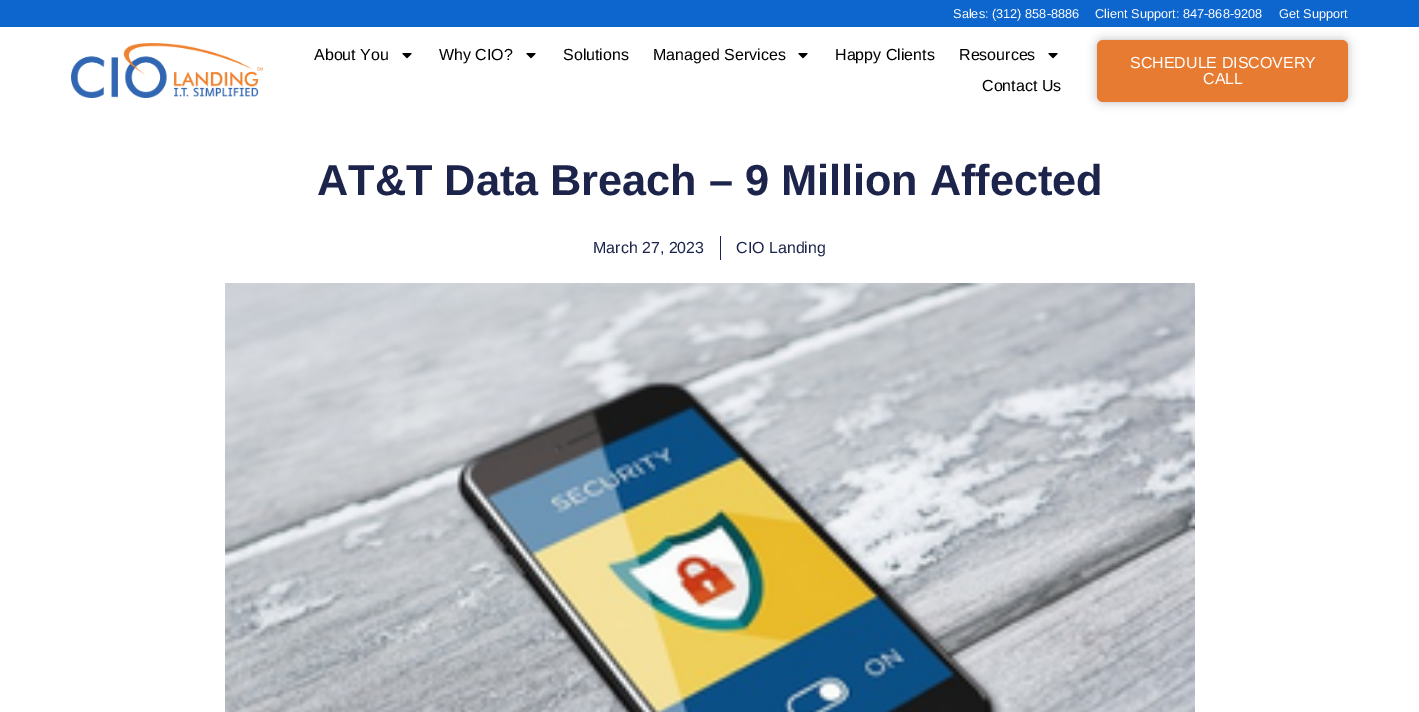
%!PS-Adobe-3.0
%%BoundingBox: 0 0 1419 712
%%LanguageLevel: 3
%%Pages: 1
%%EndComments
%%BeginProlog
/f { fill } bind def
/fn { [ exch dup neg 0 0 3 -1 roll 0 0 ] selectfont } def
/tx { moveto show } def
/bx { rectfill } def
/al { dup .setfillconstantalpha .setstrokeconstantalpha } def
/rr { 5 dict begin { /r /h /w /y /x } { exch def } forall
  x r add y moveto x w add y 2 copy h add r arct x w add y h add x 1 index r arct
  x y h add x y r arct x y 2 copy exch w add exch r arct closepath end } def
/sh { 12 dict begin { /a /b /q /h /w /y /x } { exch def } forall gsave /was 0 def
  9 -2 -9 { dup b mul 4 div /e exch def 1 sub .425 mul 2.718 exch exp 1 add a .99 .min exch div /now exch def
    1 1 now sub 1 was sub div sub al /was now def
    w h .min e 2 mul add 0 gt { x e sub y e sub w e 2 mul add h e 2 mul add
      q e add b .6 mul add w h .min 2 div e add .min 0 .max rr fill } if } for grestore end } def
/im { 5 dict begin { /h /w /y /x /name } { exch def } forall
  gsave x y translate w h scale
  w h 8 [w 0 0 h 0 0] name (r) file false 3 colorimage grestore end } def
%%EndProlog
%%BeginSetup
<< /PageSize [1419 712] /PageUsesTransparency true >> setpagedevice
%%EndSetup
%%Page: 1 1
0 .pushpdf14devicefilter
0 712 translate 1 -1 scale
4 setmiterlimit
1 setgray
0 0 1419 712 bx
0.051 0.396 0.808 setrgbcolor
0 0 1419 27 bx
/LiberationSans-Regular 12.75 fn
1 setgray
(Sales: \(312\) 858-8886) 953 18 tx
(Client Support: 847-868-9208) 1095 18 tx
(Get Support) 1279 18 tx
(image0.raw) 71 43 192 55 im
/LiberationSans-Regular 16 fn
0 setgray
(About You) 314 60 tx
(image1.raw) 402 53 10 6 im
(Why CIO?) 439 60 tx
(image1.raw) 526 53 10 6 im
(Solutions) 563 60 tx
(Managed Services) 653 60 tx
(image1.raw) 798 53 10 6 im
(Happy Clients) 835 60 tx
(Resources) 959 60 tx
(image1.raw) 1048 53 10 6 im
(Contact Us) 982 91 tx
1097 40 251 62 6 5 0.25 sh
0.902 0.482 0.192 setrgbcolor
1097 40 251 62 6 rr f
1 setgray
(SCHEDULE DISCOVERY) 1130 68 tx
(CALL) 1203 84 tx
/LiberationSans-Bold 43.25 fn
0.11 0.141 0.294 setrgbcolor
(AT&T Data Breach – 9 Million Affected) 317 195 tx
/LiberationSans-Regular 16 fn
(March 27, 2023) 593 253 tx
720 236 1 24 bx
(CIO Landing) 736 253 tx
(image2.raw) 225 283 970 429 im
.poppdf14devicefilter showpage
%%EOF
